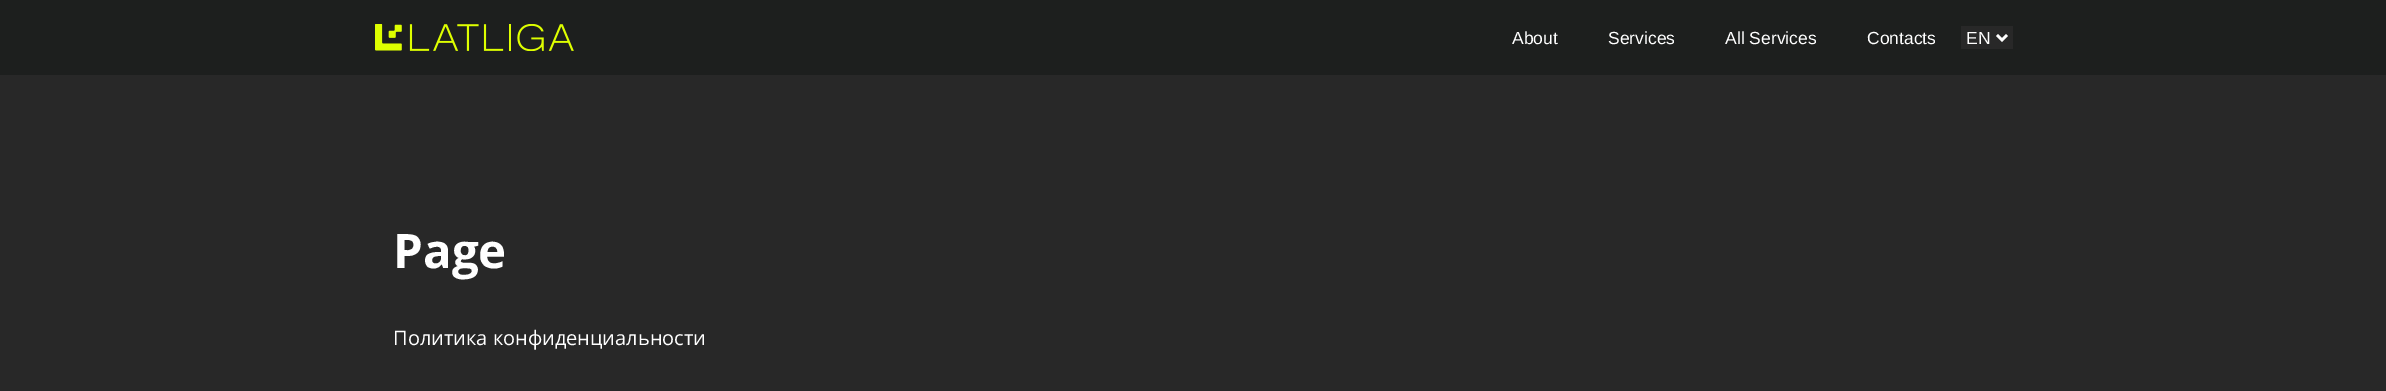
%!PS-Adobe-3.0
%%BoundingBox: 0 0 2386 391
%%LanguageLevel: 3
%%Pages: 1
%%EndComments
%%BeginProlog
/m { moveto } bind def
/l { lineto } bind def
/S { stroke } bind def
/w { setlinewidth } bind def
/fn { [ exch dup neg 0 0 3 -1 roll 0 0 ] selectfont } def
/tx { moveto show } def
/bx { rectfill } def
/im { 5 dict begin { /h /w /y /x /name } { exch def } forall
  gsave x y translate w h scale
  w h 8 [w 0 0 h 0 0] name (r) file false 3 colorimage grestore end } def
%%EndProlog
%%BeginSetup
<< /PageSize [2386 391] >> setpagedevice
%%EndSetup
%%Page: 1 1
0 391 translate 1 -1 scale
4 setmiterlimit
0.157 setgray
0 0 2386 391 bx
0.114 0.122 0.118 setrgbcolor
0 0 2386 75 bx
(image0.raw) 375 24 199 27 im
/LiberationSans-Regular 17.5 fn
1 setgray
(About) 1512 44 tx
(Services) 1608 44 tx
(All Services) 1725 44 tx
(Contacts) 1867 44 tx
0.157 setgray
1961 26 52 23 bx
1 setgray
2.5 w
1997 35 m 2002 40 l 2007 35 l S
(EN) 1966 44 tx
/OpenSans-Bold 47.5 fn
(Page) 393 268 tx
/OpenSans-Regular 20 fn
(Политика конфиденциальности) 393 345 tx
showpage
%%EOF
